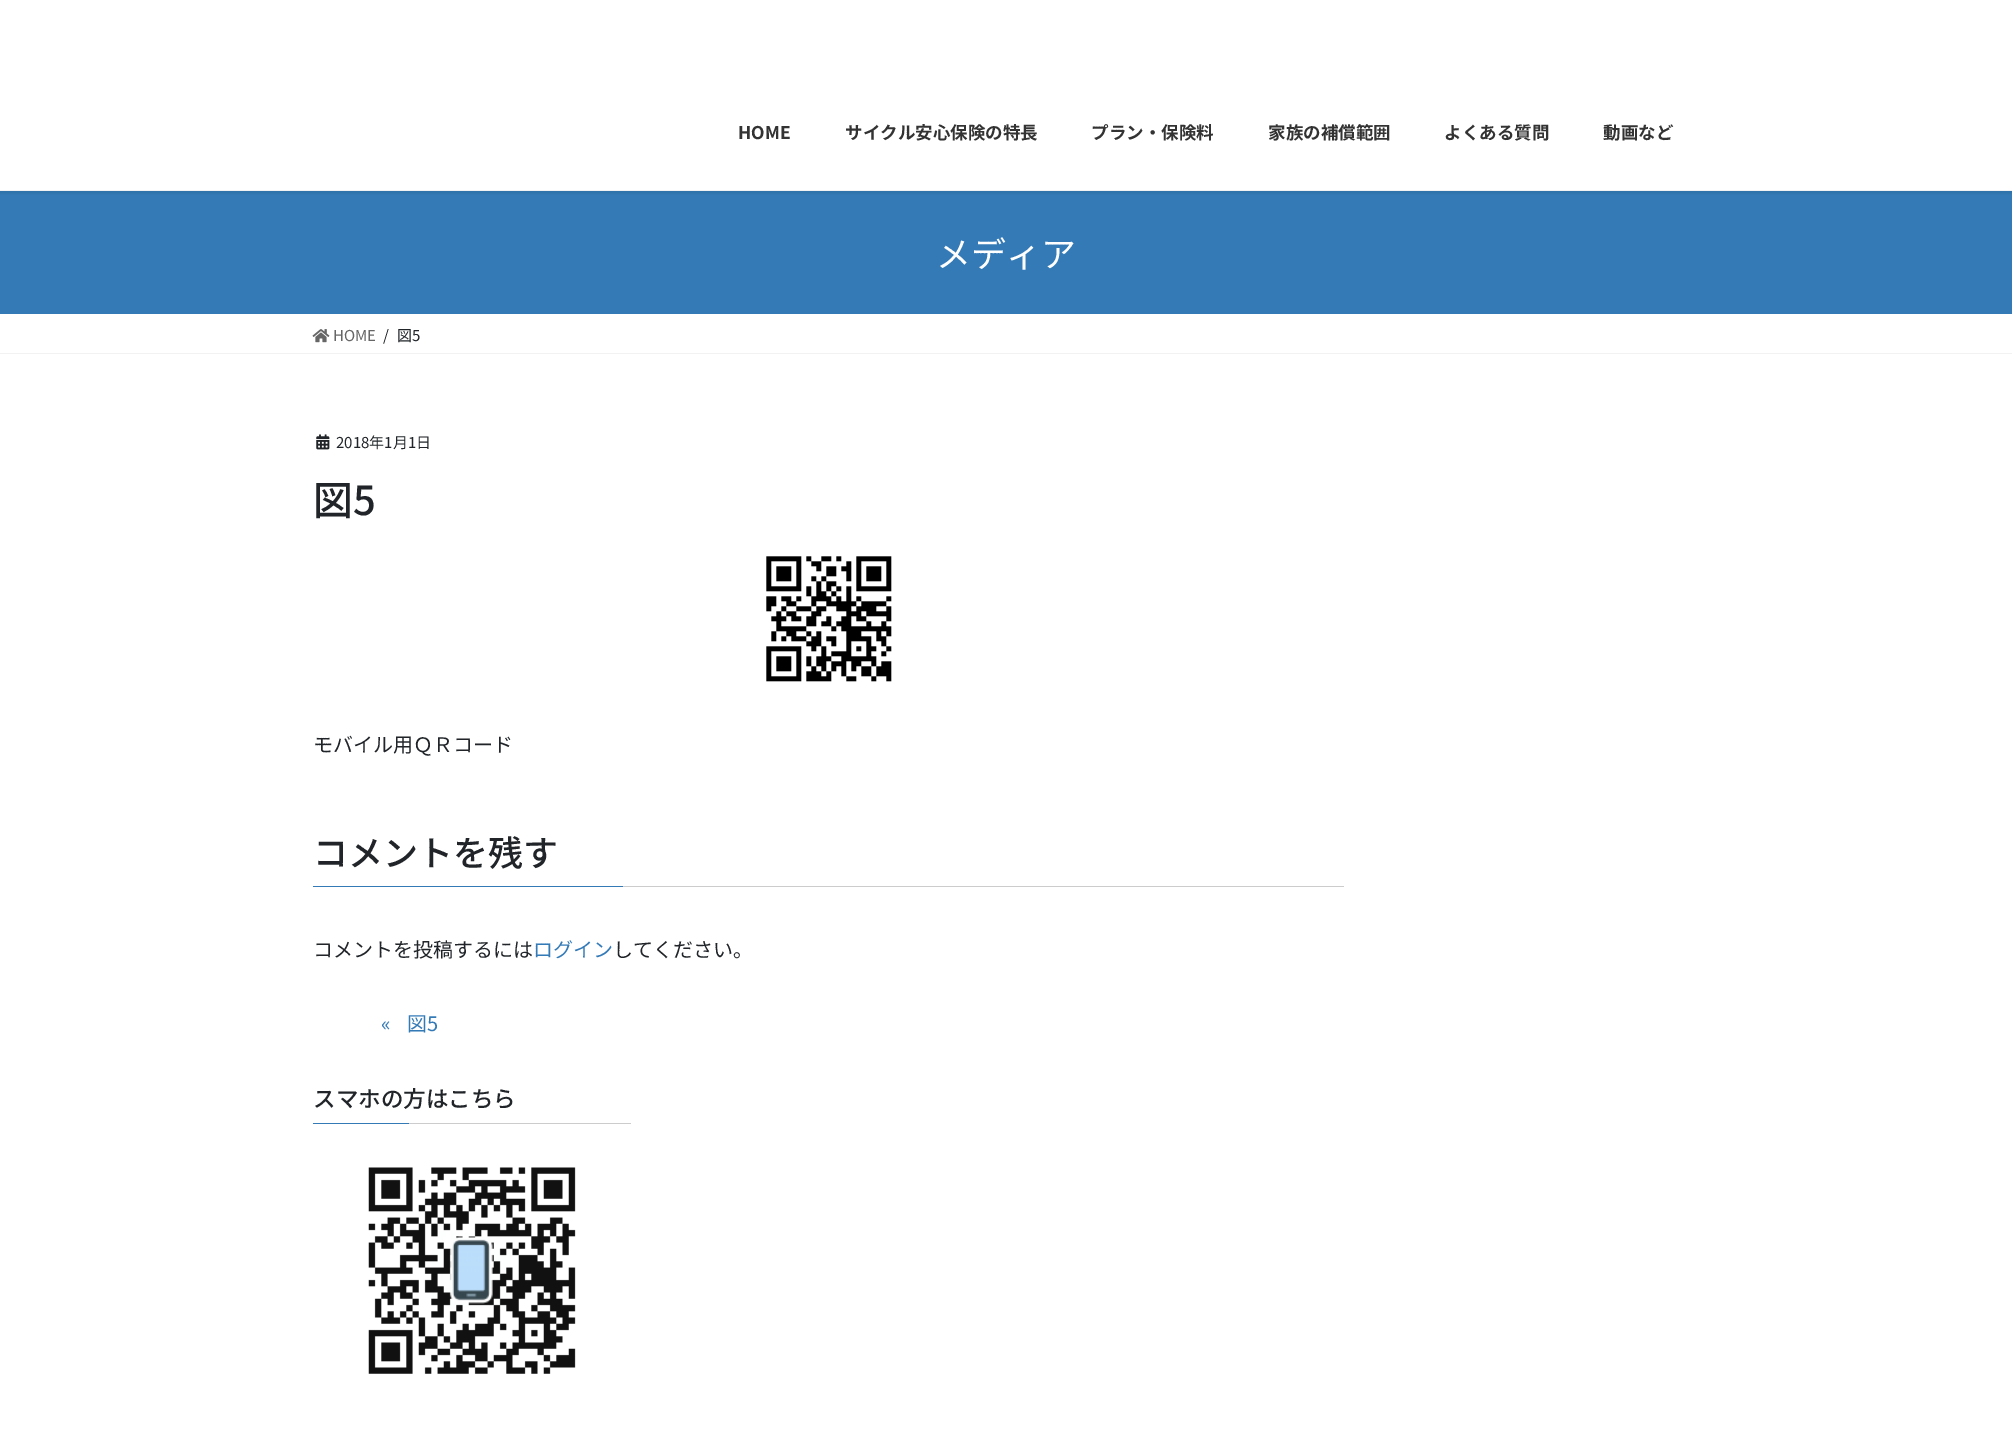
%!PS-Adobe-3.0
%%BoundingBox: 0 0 2012 1436
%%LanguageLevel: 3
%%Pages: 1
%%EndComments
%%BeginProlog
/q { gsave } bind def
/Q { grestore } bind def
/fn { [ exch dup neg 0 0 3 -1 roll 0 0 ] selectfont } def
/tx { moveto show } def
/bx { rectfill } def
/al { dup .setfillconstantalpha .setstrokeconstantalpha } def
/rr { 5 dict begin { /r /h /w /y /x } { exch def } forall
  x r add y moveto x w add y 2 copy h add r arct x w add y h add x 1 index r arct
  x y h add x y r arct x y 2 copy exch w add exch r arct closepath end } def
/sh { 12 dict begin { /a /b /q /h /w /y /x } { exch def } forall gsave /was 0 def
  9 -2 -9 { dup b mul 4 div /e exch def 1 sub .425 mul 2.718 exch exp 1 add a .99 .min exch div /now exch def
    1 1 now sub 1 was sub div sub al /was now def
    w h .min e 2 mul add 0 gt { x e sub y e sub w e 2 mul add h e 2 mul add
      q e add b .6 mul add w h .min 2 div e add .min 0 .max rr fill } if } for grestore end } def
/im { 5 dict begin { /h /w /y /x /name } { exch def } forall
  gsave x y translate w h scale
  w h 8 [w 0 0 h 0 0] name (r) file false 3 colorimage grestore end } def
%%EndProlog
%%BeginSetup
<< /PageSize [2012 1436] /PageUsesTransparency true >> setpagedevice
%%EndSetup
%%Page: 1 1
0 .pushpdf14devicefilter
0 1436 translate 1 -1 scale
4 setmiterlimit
1 setgray
0 0 2012 1436 bx
0.2 0.478 0.718 setrgbcolor
0 191 2012 123 bx
q
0 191 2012 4 rectclip
0 setgray
0 1 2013 192 0 2 0.1 sh
Q
0.949 setgray
0 190 2012 1 bx
/NotoSansJP-Bold 17.5 fn
0.2 setgray
(HOME) 738 139 tx
(サイクル安心保険の特長) 845 139 tx
(プラン・保険料) 1091 139 tx
(家族の補償範囲) 1268 139 tx
(よくある質問) 1444 139 tx
(動画など) 1603 139 tx
/NotoSansJP-Regular 35 fn
1 setgray
(メディア) 936 267 tx
0.949 setgray
0 353 2012 1 bx
(image0.raw) 312 329 18 14 im
/NotoSansJP-Regular 15 fn
0.4 setgray
(HOME) 333 341 tx
0.129 0.145 0.161 setrgbcolor
(/) 383 341 tx
(図5) 397 341 tx
(image1.raw) 316 434 14 16 im
(2018年1月1日) 336 448 tx
/NotoSansJP-Medium 40 fn
(図5) 313 515 tx
(image2.raw) 766 556 126 126 im
/NotoSansJP-Regular 20 fn
(モバイル用ＱＲコード) 313 752 tx
0.8 setgray
623 886 721 1 bx
/NotoSansJP-Medium 35 fn
0.129 0.145 0.161 setrgbcolor
(コメントを残す) 313 866 tx
0.2 0.478 0.718 setrgbcolor
313 886 310 1 bx
/NotoSansJP-Regular 20 fn
0.129 0.145 0.161 setrgbcolor
(コメントを投稿するには) 313 957 tx
0.2 0.478 0.718 setrgbcolor
(ログイン) 533 957 tx
0.129 0.145 0.161 setrgbcolor
(してください。) 613 957 tx
0.2 0.478 0.718 setrgbcolor
(«) 381 1031 tx
(図5) 407 1031 tx
0.8 setgray
409 1123 222 1 bx
/NotoSansJP-Medium 22.5 fn
0.129 0.145 0.161 setrgbcolor
(スマホの方はこちら) 313 1107 tx
0.2 0.478 0.718 setrgbcolor
313 1123 96 1 bx
(image3.raw) 368 1167 208 207 im
.poppdf14devicefilter showpage
%%EOF
